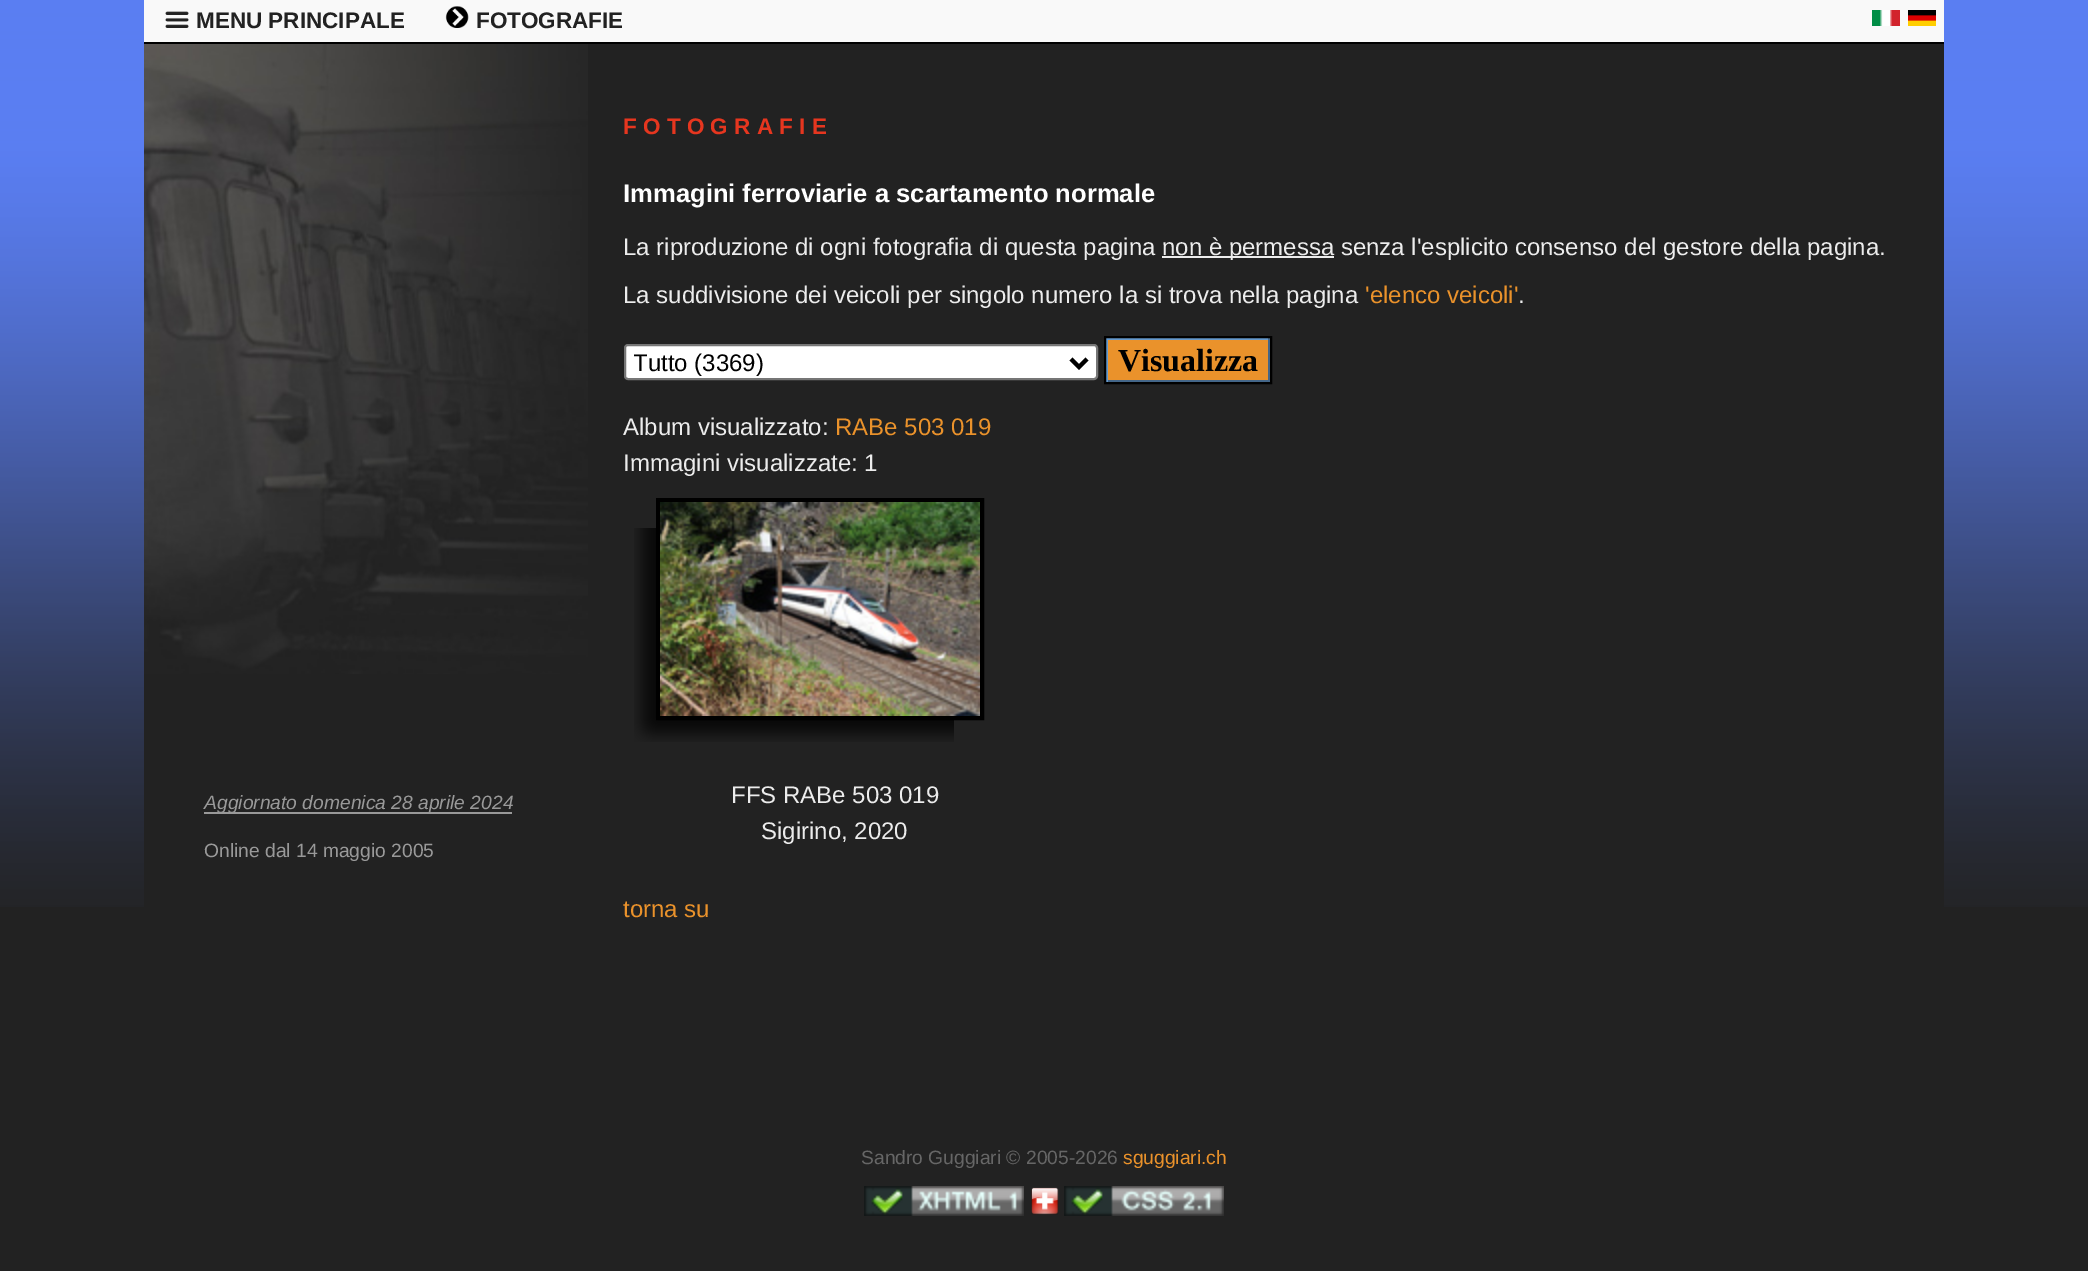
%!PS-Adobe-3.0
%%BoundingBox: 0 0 2088 1271
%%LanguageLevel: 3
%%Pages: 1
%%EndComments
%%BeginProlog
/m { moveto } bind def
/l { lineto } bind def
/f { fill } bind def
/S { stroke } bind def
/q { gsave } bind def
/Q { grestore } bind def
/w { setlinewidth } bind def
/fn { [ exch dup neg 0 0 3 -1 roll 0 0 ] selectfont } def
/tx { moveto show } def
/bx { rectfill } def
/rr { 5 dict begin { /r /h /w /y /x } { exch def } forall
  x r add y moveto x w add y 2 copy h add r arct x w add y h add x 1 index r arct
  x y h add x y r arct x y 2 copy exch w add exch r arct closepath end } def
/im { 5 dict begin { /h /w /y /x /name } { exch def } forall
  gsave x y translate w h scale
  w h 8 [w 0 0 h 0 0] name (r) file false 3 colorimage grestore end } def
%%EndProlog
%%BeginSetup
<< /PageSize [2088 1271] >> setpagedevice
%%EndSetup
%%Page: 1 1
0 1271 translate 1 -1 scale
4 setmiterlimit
0.133 setgray
0 0 2088 1271 bx
(image0.raw) 0 0 2088 907 im
144 44 1800 863 bx
0.976 setgray
144 0 1800 42 bx
0 setgray
144 42 1800 2 bx
(image1.raw) 165 11 24 17 im
/LiberationSans-Bold 22.5 fn
0.133 setgray
(MENU PRINCIPALE) 196 28 tx
(image2.raw) 445 6 24 22 im
(FOTOGRAFIE) 476 28 tx
(image3.raw) 1872 10 28 16 im
(image4.raw) 1908 10 28 16 im
(image5.raw) 144 44 444 630 im
0.6 setgray
204 812 308 2 bx
/LiberationSans-Italic 19.25 fn
(Aggiornato domenica 28 aprile 2024) 204 809 tx
/LiberationSans-Regular 19.25 fn
(Online dal 14 maggio 2005) 204 857 tx
/LiberationSans-Bold 22.5 fn
0.902 0.212 0.122 setrgbcolor
(F O T O G R A F I E) 623 134 tx
/LiberationSans-Bold 25.6 fn
1 setgray
(Immagini ferroviarie a scartamento normale) 623 202 tx
/LiberationSans-Regular 24 fn
0.925 setgray
(La riproduzione di ogni fotografia di questa pagina) 623 255 tx
1162 256 172 2 bx
(non è permessa senza l'esplicito consenso del gestore della pagina.) 1162 255 tx
(La suddivisione dei veicoli per singolo numero la si trova nella pagina) 623 303 tx
0.918 0.573 0.169 setrgbcolor
('elenco veicoli') 1365 303 tx
0.925 setgray
(.) 1518 303 tx
1 setgray
625 345 472 34 3 rr q f Q
0.463 setgray
2 w
S
0 setgray
4 w
1071 359 m 1079 367 l 1087 359 l S
q
634 346 430 32 rectclip
(Tutto \(3369\)) 633 371 tx
Q
0.918 0.573 0.169 setrgbcolor
1108 340 160 40 bx
0.4 0.6 0.8 setrgbcolor
1106 338 164 2 bx
0.267 0.4 0.533 setrgbcolor
1268 338 2 44 bx
1106 380 164 2 bx
0.4 0.6 0.8 setrgbcolor
1106 338 2 44 bx
0 setgray
2 w
1105 337 166 46 rectstroke
/LiberationSerif-Bold 32 fn
(Visualizza) 1118 371 tx
/LiberationSans-Regular 24 fn
0.925 setgray
(Album visualizzato:) 623 435 tx
0.918 0.573 0.169 setrgbcolor
(RABe 503 019) 835 435 tx
0.925 setgray
(Immagini visualizzate: 1) 623 471 tx
(image6.raw) 634 528 320 214 im
0 setgray
4 w
658 500 324 218 rectstroke
(image7.raw) 660 502 320 214 im
0.925 setgray
(FFS RABe 503 019) 731 803 tx
(Sigirino, 2020) 761 839 tx
0.918 0.573 0.169 setrgbcolor
(torna su) 623 917 tx
/LiberationSans-Regular 19.25 fn
0.4 setgray
(Sandro Guggiari © 2005-2026) 861 1164 tx
0.918 0.573 0.169 setrgbcolor
(sguggiari.ch) 1123 1164 tx
(image8.raw) 864 1186 160 30 im
(image9.raw) 1031 1187 28 28 im
(image10.raw) 1064 1186 160 30 im
showpage
%%EOF
